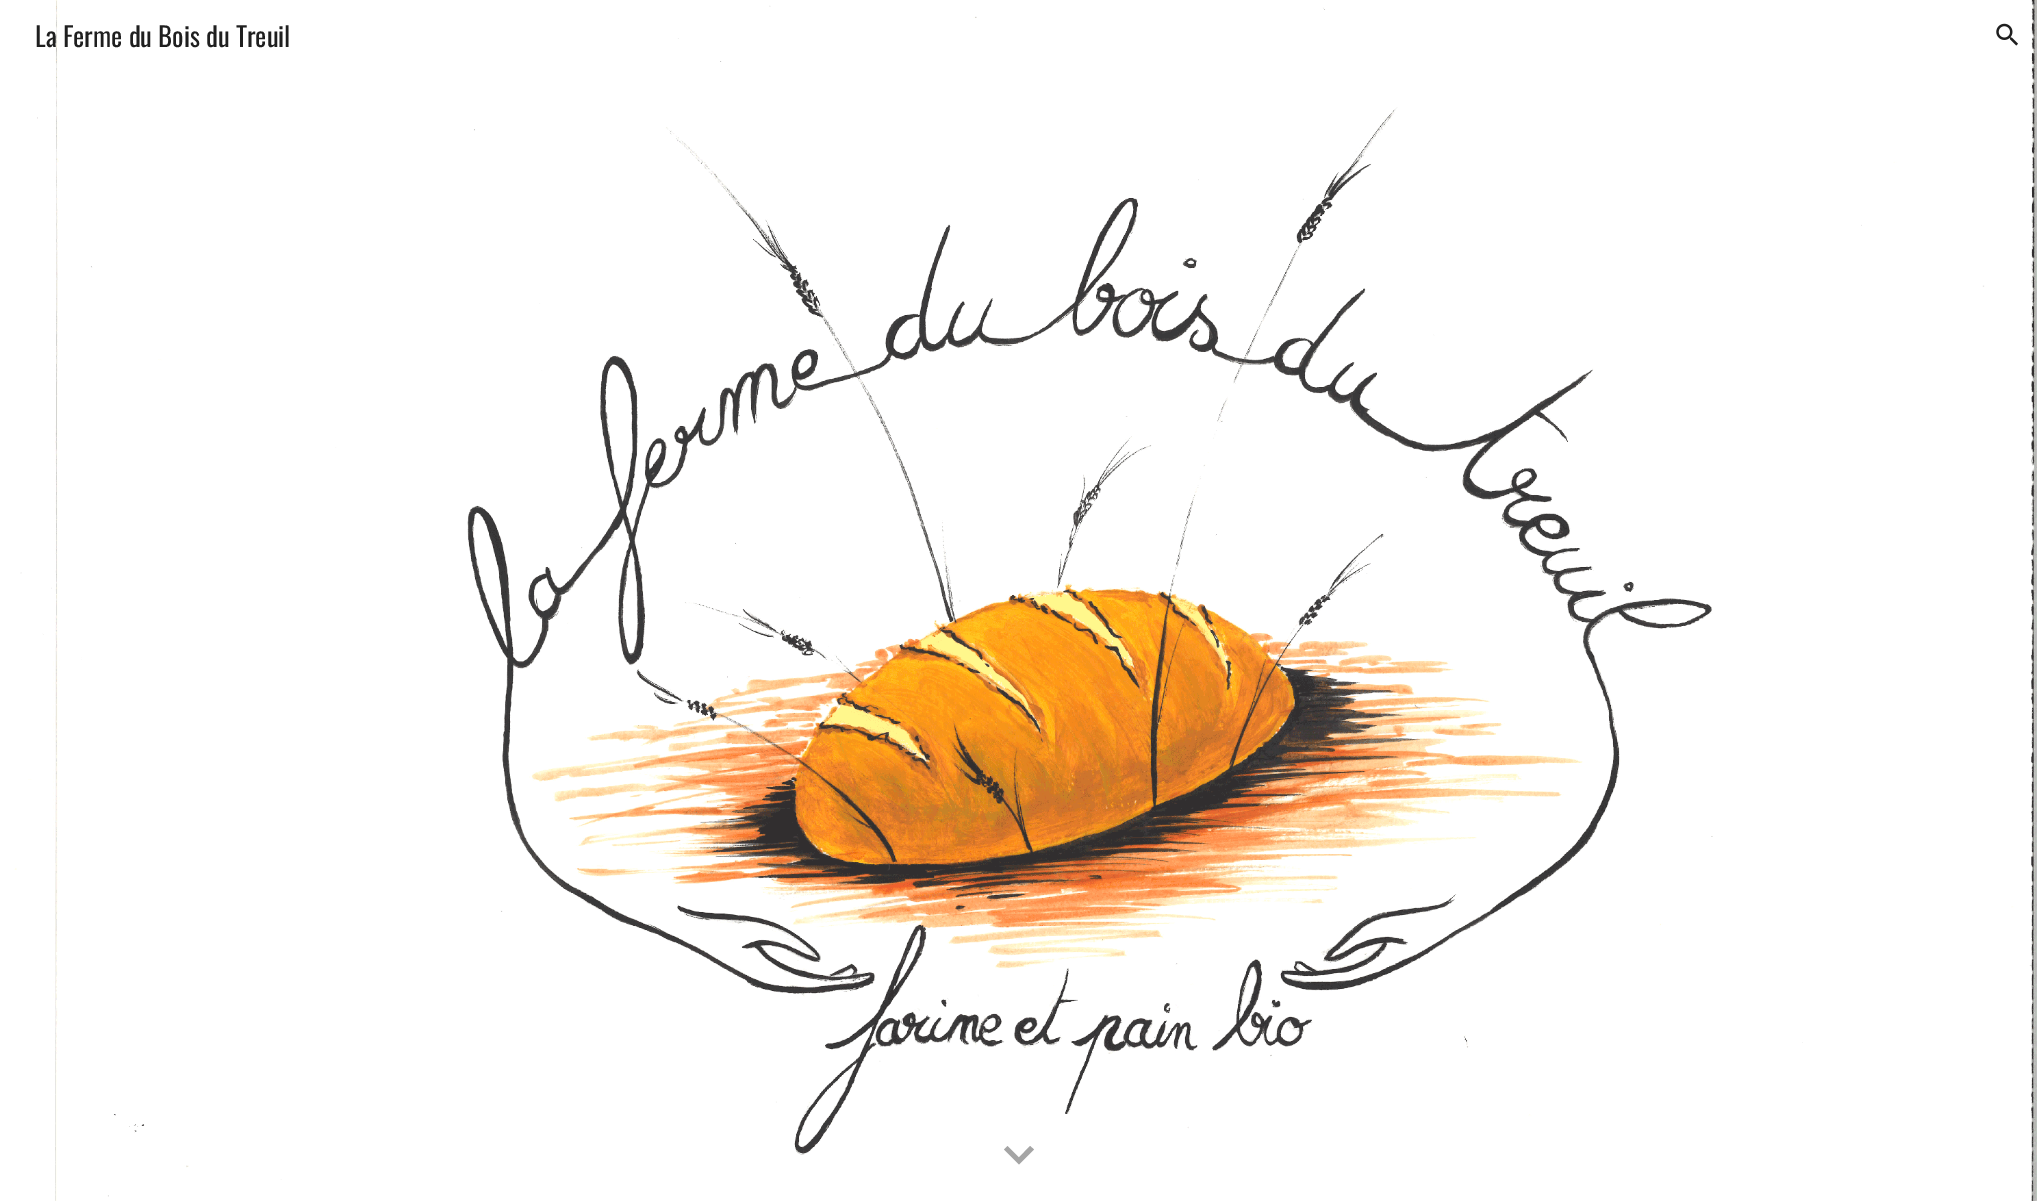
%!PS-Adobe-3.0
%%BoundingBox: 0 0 2037 1201
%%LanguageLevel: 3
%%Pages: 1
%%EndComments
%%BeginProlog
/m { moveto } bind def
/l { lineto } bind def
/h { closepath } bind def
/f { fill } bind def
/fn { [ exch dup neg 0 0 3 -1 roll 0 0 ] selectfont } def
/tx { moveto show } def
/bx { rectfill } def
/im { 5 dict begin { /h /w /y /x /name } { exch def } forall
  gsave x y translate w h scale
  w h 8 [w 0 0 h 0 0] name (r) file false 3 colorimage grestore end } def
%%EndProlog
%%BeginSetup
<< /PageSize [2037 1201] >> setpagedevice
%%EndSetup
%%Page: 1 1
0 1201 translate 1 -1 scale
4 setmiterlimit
1 setgray
0 0 2037 1201 bx
(image0.raw) 14 0 2023 1201 im
0.647 setgray
1007.5 1146 m 1019 1157.5 l 1030 1146 l 1034 1149.5 l 1019 1164.5 l 1004 1149.5 l h f
/Oswald-Regular 26.75 fn
0.122 setgray
(La Ferme du Bois du Treuil) 35 47 tx
(image1.raw) 1996 23 22 23 im
showpage
%%EOF
